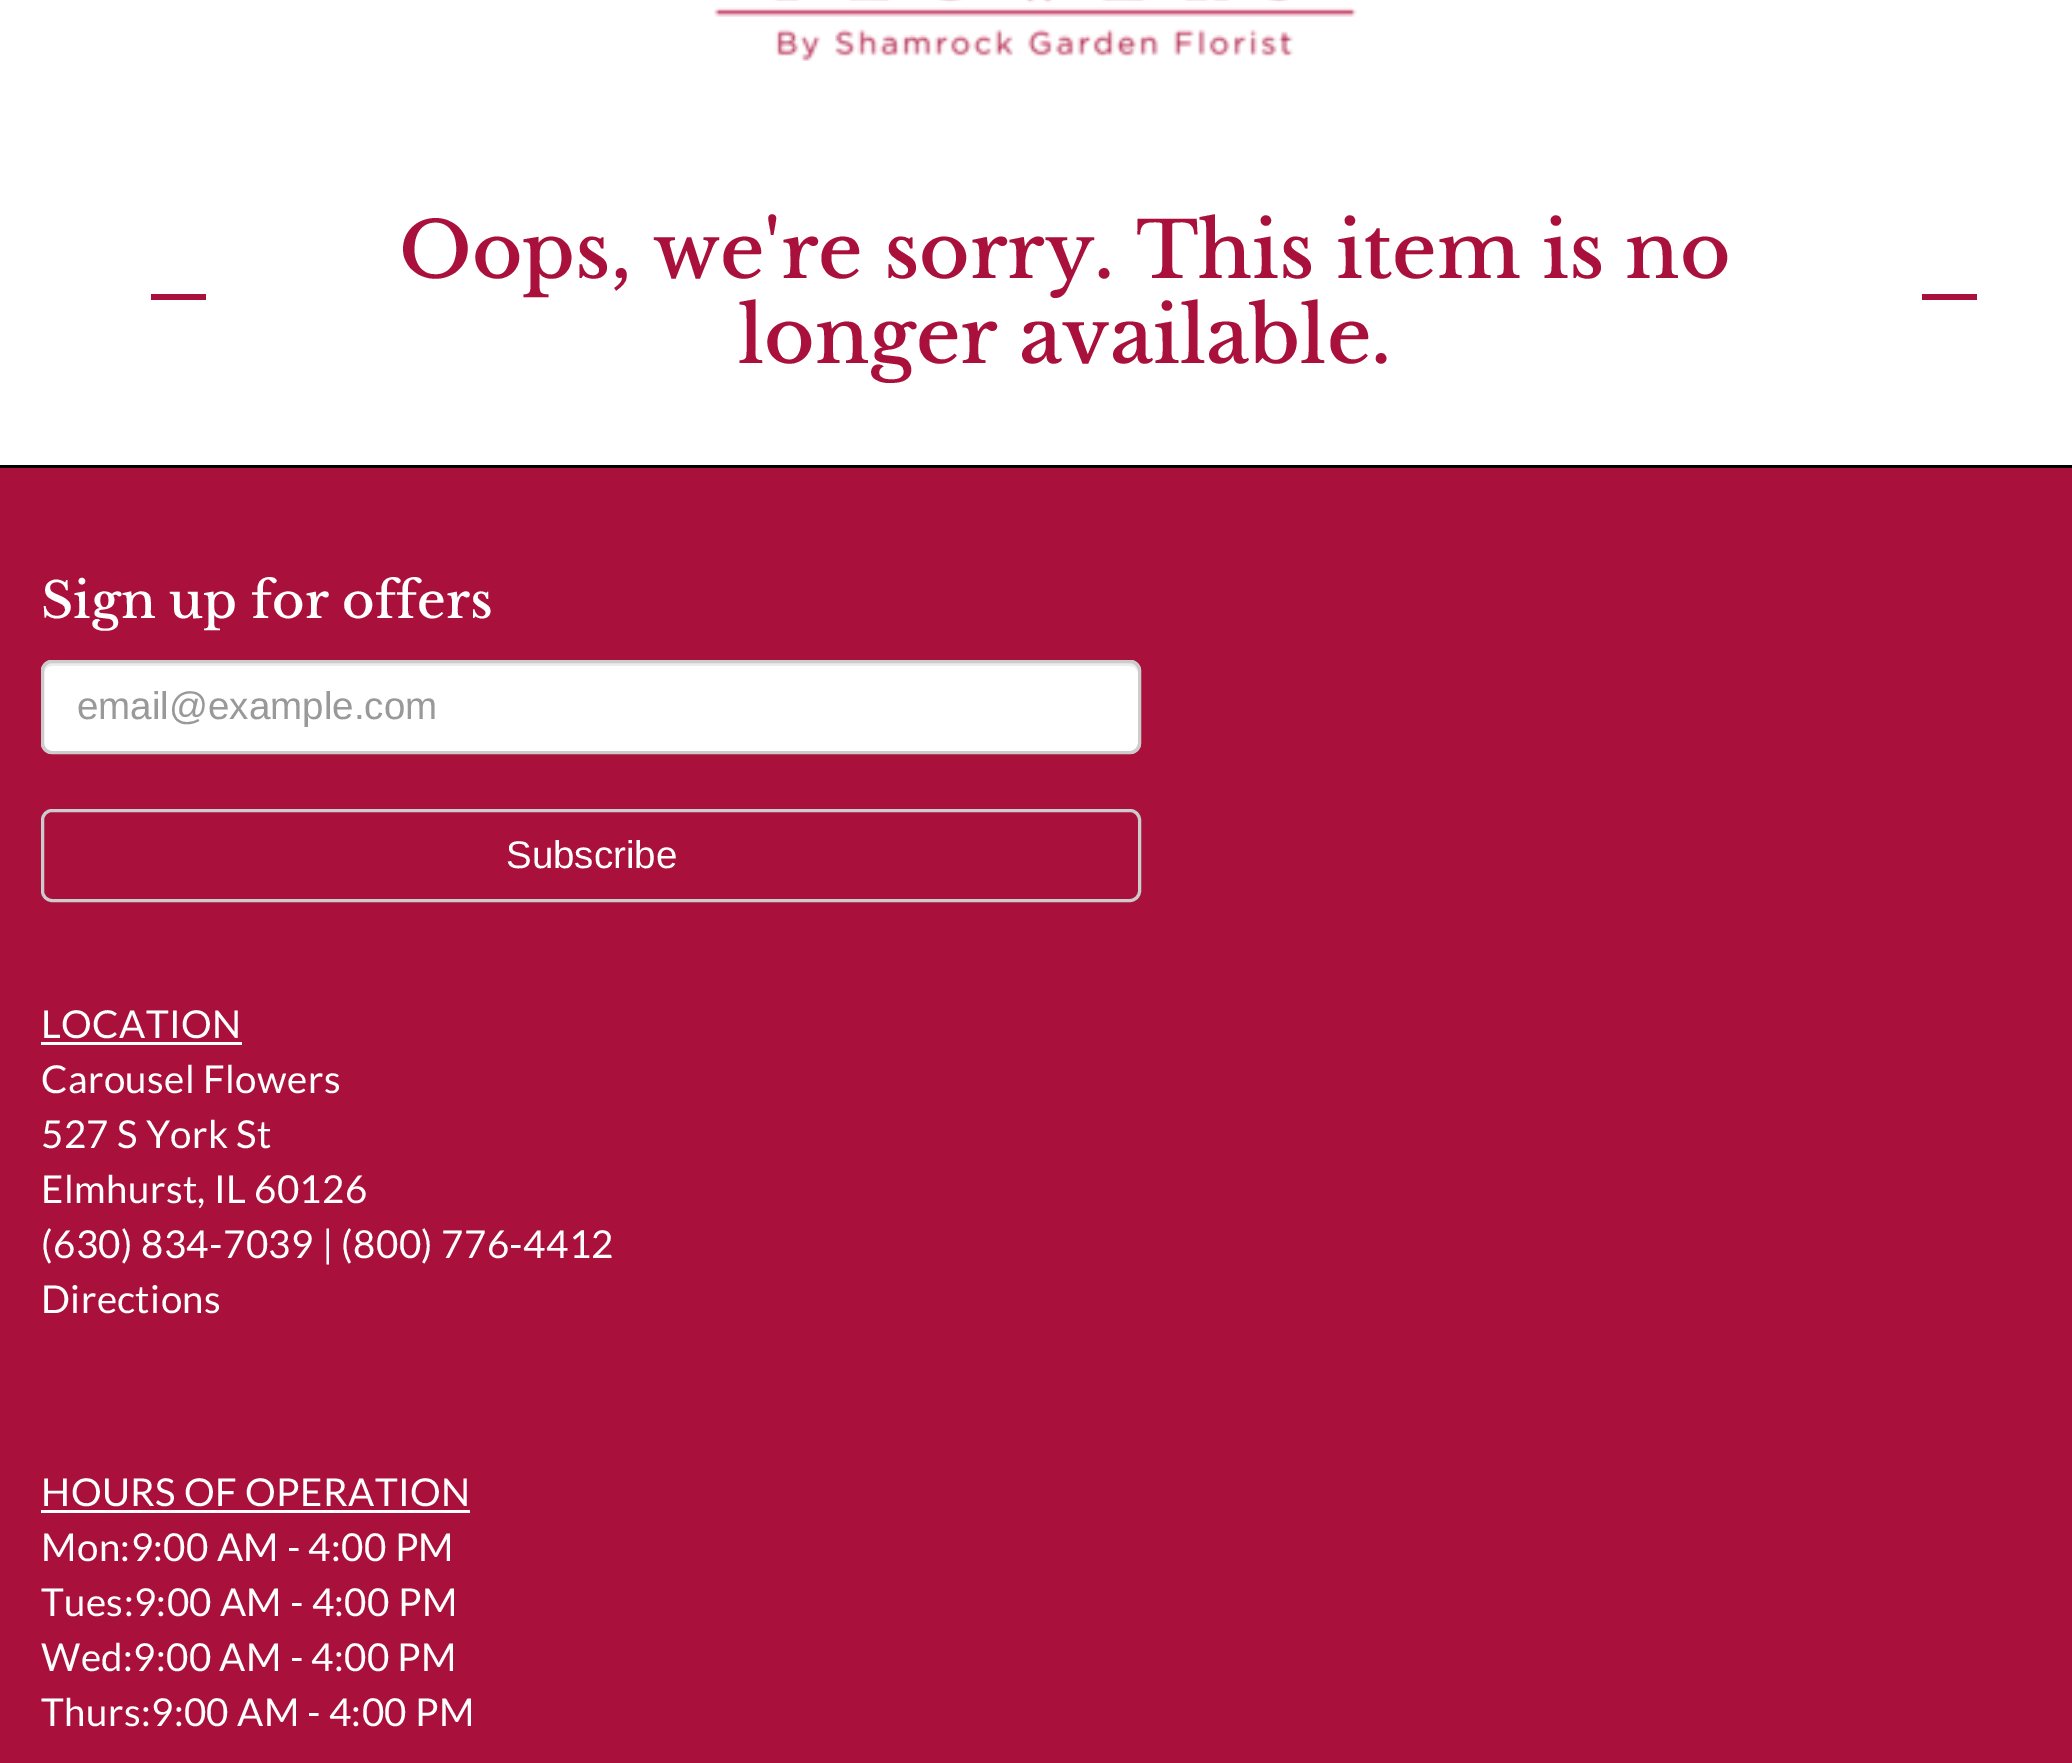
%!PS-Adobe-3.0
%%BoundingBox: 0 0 2072 1763
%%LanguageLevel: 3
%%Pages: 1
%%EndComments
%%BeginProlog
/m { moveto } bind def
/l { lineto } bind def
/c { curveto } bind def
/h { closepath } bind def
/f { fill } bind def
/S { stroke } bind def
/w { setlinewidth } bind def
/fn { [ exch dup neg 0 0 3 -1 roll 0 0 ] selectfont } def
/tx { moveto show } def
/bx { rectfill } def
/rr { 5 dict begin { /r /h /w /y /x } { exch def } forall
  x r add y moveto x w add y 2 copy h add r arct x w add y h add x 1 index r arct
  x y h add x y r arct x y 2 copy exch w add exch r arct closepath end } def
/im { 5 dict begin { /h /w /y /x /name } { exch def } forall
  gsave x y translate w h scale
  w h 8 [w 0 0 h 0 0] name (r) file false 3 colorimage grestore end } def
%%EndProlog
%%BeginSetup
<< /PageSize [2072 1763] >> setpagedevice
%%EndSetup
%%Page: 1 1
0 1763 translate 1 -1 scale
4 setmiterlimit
1 setgray
0 0 2072 1763 bx
(image0.raw) 714 0 643 61 im
0.663 0.067 0.235 setrgbcolor
151 294 55 6 bx
/LibreBaskerville-Medium 77 fn
(Oops, we're sorry. This item is no) 399 278 tx
1922 294 55 6 bx
(longer available.) 738 363 tx
0 468 2072 1295 bx
0 setgray
0 465 2072 3 bx
/LibreBaskerville-Medium 49.5 fn
1 setgray
(Sign up for offers) 41 618 tx
41 660 1100 94 11 rr f
0.925 setgray
52 666 m 1130 666 l 1135 666 1138 669 1138 674 c 1138 747 l 1139 746 1139 745 1139 743 c 1139 671 l 1139 667 1135 663 1131 663 c 52 663 l 48 663 44 667 44 671 c 44 674 l 44 669 48 666 52 666 c h f
0.8 setgray
3 w
42.5 661.5 1097 91 9.5 rr S
/LiberationSans-Regular 38.5 fn
0.6 setgray
(email@example.com) 77 719 tx
0.8 setgray
42.5 810.5 1097 90 9.5 rr S
1 setgray
(Subscribe) 506 868 tx
/Lato-Regular 38.5 fn
41 1038 m 0.4 0 (LOCATION) ashow
41 1042 201 3 bx
41 1093 m 0.4 0 (Carousel Flowers) ashow
41 1148 m 0.4 0 (527 S York St) ashow
41 1203 m 0.4 0 (Elmhurst, IL 60126) ashow
41 1258 m 0.4 0 (\(630\) 834-7039 | \(800\) 776-4412) ashow
41 1313 m 0.4 0 (Directions) ashow
41 1506 m 0.4 0 (HOURS OF OPERATION) ashow
41 1510 429 3 bx
41 1561 m 0.4 0 (Mon:9:00 AM - 4:00 PM) ashow
41 1616 m 0.4 0 (Tues:9:00 AM - 4:00 PM) ashow
41 1671 m 0.4 0 (Wed:9:00 AM - 4:00 PM) ashow
41 1726 m 0.4 0 (Thurs:9:00 AM - 4:00 PM) ashow
showpage
%%EOF
